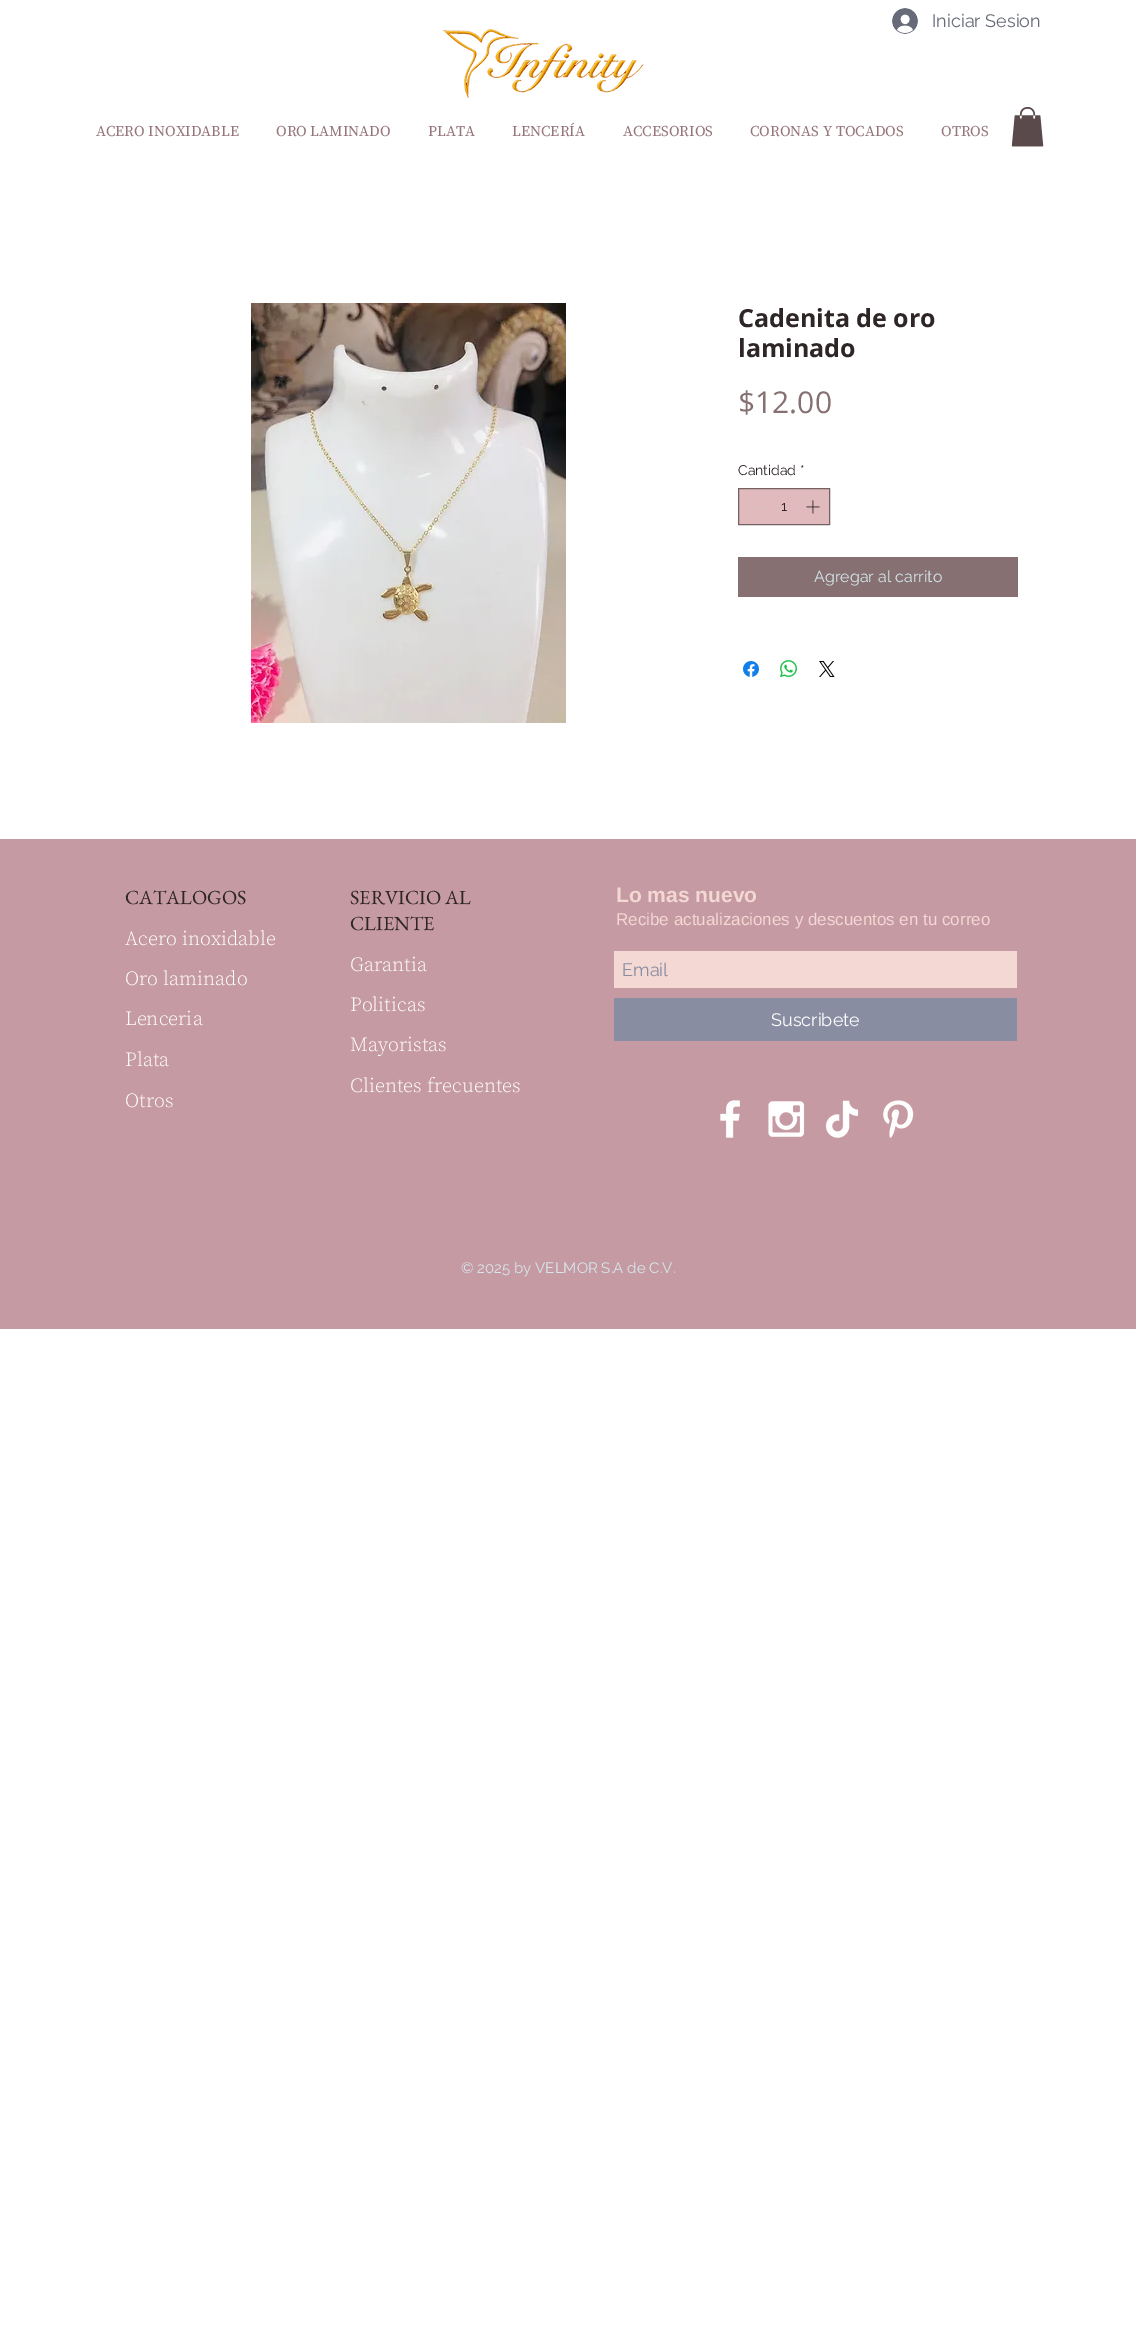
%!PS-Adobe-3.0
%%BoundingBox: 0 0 1136 2348
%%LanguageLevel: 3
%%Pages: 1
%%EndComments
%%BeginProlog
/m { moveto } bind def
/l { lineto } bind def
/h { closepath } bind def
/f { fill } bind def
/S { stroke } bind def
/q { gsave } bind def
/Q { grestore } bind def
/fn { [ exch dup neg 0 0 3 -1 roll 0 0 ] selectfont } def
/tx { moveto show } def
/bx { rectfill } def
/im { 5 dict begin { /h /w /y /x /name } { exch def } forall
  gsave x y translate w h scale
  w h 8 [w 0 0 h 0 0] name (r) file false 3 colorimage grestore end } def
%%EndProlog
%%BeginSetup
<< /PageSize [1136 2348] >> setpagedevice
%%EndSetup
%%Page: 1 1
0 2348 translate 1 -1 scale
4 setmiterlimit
1 setgray
0 0 1136 2348 bx
(image0.raw) 892 8 26 26 im
/Raleway-Regular 18 fn
0.404 0.416 0.475 setrgbcolor
(Iniciar Sesion) 932 27 tx
(image1.raw) 443 29 201 69 im
/SourceSerifPro-Regular 15 fn
0.584 0.455 0.478 setrgbcolor
(ACERO INOXIDABLE) 96 136 tx
(ORO LAMINADO) 276 136 tx
(PLATA) 428 136 tx
(LENCERÍA) 512 136 tx
(ACCESORIOS) 623 136 tx
(CORONAS Y TOCADOS) 750 136 tx
(OTROS) 941 136 tx
(image2.raw) 1011 107 33 40 im
(image3.raw) 251 303 315 420 im
/OpenSans-Bold 25 fn
0.176 0.145 0.149 setrgbcolor
(Cadenita de oro) 738 327 tx
(laminado) 738 357 tx
/OpenSans-Regular 30 fn
0.525 0.439 0.443 setrgbcolor
($12.00) 738 413 tx
/Raleway-Regular 14 fn
0.176 0.145 0.149 setrgbcolor
(Cantidad) 738 475 tx
(*) 800 475 tx
0.878 0.729 0.741 setrgbcolor
738.5 488.5 m 829.5 488.5 l 829.5 524.5 l 738.5 524.5 l h q f Q
0.459 0.38 0.384 setrgbcolor
S
0.831 0.757 0.761 setrgbcolor
750 507 13 1 bx
0.176 0.145 0.149 setrgbcolor
(1) 781 511 tx
(image4.raw) 806 500 14 14 im
0.525 0.439 0.443 setrgbcolor
738 557 280 40 bx
/Raleway-Regular 16 fn
0.839 0.906 0.929 setrgbcolor
(Agregar al carrito) 814 582 tx
(image5.raw) 743 661 16 16 im
(image6.raw) 780 660 17 17 im
(image7.raw) 819 661 16 16 im
0.776 0.604 0.639 setrgbcolor
0 839 1136 490 bx
/EBGaramond-Regular 20 fn
0.176 0.145 0.149 setrgbcolor
(CATALOGOS) 125 904 tx
/SourceSerifPro-Light 20 fn
1 setgray
(Acero inoxidable) 125 945 tx
(Oro laminado) 125 985 tx
(Lenceria) 125 1025 tx
(Plata) 125 1066 tx
(Otros) 125 1107 tx
/EBGaramond-Regular 20 fn
0.176 0.145 0.149 setrgbcolor
(SERVICIO AL) 350 904 tx
(CLIENTE) 350 930 tx
/SourceSerifPro-Light 20 fn
1 setgray
(Garantia) 350 971 tx
(Politicas) 350 1011 tx
(Mayoristas) 350 1051 tx
(Clientes frecuentes) 350 1092 tx
/LiberationSans-Bold 21 fn
0.957 0.847 0.831 setrgbcolor
(Lo mas nuevo) 616 902 tx
/LiberationSans-Regular 17 fn
(Recibe actualizaciones y descuentos en tu correo) 616 925 tx
614 951 403 37 bx
/Raleway-Regular 18 fn
0.537 0.553 0.635 setrgbcolor
(Email) 622 976 tx
614 998 403 43 bx
1 setgray
(Suscribete) 771 1026 tx
(image8.raw) 720 1100 20 38 im
(image9.raw) 768 1101 37 36 im
(image10.raw) 825 1100 34 38 im
(image11.raw) 883 1100 31 38 im
/Raleway-Regular 15 fn
0.839 0.906 0.929 setrgbcolor
(© 2025 by VELMOR S.A de C.V.) 461 1273 tx
showpage
%%EOF
